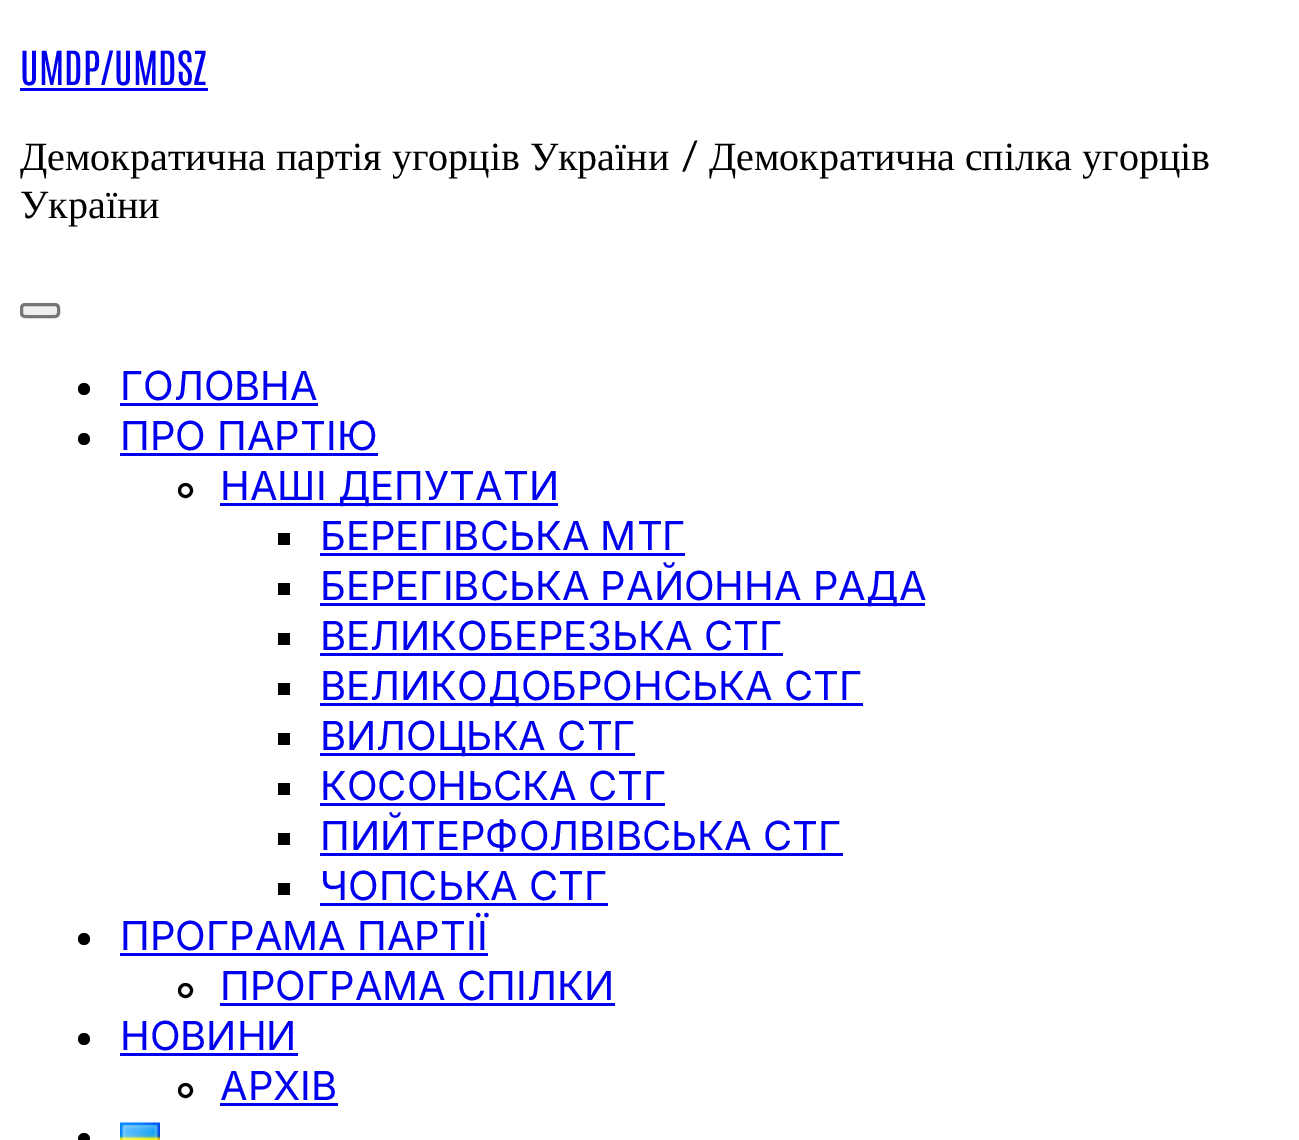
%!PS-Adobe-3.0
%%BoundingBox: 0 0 1299 1140
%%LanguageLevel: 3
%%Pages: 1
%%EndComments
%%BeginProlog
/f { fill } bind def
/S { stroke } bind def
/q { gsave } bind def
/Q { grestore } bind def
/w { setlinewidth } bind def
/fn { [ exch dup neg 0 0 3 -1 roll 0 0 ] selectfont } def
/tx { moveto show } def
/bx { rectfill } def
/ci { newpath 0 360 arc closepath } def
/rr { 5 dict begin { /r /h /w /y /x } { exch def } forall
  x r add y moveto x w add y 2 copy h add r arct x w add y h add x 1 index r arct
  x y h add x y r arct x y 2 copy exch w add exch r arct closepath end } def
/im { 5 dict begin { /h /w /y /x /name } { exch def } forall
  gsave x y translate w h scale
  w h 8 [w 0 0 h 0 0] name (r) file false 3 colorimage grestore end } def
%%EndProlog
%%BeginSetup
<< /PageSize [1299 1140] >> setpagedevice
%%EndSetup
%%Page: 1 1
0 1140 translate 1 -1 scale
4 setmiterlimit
1 setgray
0 0 1299 1140 bx
/Antonio-Regular 40 fn
0 0 0.933 setrgbcolor
(UMDP/UMDSZ) 20 85 tx
20 88 188 3 bx
/LiberationSerif-Regular 40 fn
0 setgray
(Демократична партія угорців України) 20 170 tx
/Aleo-Regular 40 fn
(/) 681 170 tx
/LiberationSerif-Regular 40 fn
(Демократична спілка угорців) 709 170 tx
(України) 20 218 tx
0.937 setgray
21.5 304.5 37 12 3.5 rr q f Q
0.463 setgray
3 w
S
0 setgray
84 389 6 ci f
/Inter-Regular 40 fn
0 0 0.933 setrgbcolor
(ГОЛОВНА) 120 400 tx
120 403 198 3 bx
0 setgray
84 439 6 ci f
0 0 0.933 setrgbcolor
(ПРО ПАРТІЮ) 120 450 tx
120 453 258 3 bx
0 setgray
185.5 490.5 6 ci S
0 0 0.933 setrgbcolor
220 503 338 3 bx
(НАШІ ДЕПУТАТИ) 220 500 tx
0 setgray
278 533 12 12 bx
0 0 0.933 setrgbcolor
(БЕРЕГІВСЬКА МТГ) 320 550 tx
320 553 365 3 bx
0 setgray
278 583 12 12 bx
0 0 0.933 setrgbcolor
320 603 605 3 bx
(БЕРЕГІВСЬКА РАЙОННА РАДА) 320 600 tx
0 setgray
278 633 12 12 bx
0 0 0.933 setrgbcolor
(ВЕЛИКОБЕРЕЗЬКА СТГ) 320 650 tx
320 653 463 3 bx
0 setgray
278 683 12 12 bx
0 0 0.933 setrgbcolor
320 703 543 3 bx
(ВЕЛИКОДОБРОНСЬКА СТГ) 320 700 tx
0 setgray
278 733 12 12 bx
0 0 0.933 setrgbcolor
320 753 315 3 bx
(ВИЛОЦЬКА СТГ) 320 750 tx
0 setgray
278 783 12 12 bx
0 0 0.933 setrgbcolor
(КОСОНЬСКА СТГ) 320 800 tx
320 803 345 3 bx
0 setgray
278 833 12 12 bx
0 0 0.933 setrgbcolor
(ПИЙТЕРФОЛВІВСЬКА СТГ) 320 850 tx
320 853 523 3 bx
0 setgray
278 883 12 12 bx
0 0 0.933 setrgbcolor
(ЧОПСЬКА СТГ) 320 900 tx
320 903 288 3 bx
0 setgray
84 939 6 ci f
0 0 0.933 setrgbcolor
(ПРОГРАМА ПАРТІЇ) 120 950 tx
120 953 368 3 bx
0 setgray
185.5 990.5 6 ci S
0 0 0.933 setrgbcolor
(ПРОГРАМА СПІЛКИ) 220 1000 tx
220 1003 395 3 bx
0 setgray
84 1039 6 ci f
0 0 0.933 setrgbcolor
(НОВИНИ) 120 1050 tx
120 1053 178 3 bx
0 setgray
185.5 1090.5 6 ci S
0 0 0.933 setrgbcolor
(АРХІВ) 220 1100 tx
220 1103 118 3 bx
0 setgray
84 1139 6 ci f
(image0.raw) 120 1122 40 18 im
showpage
%%EOF
